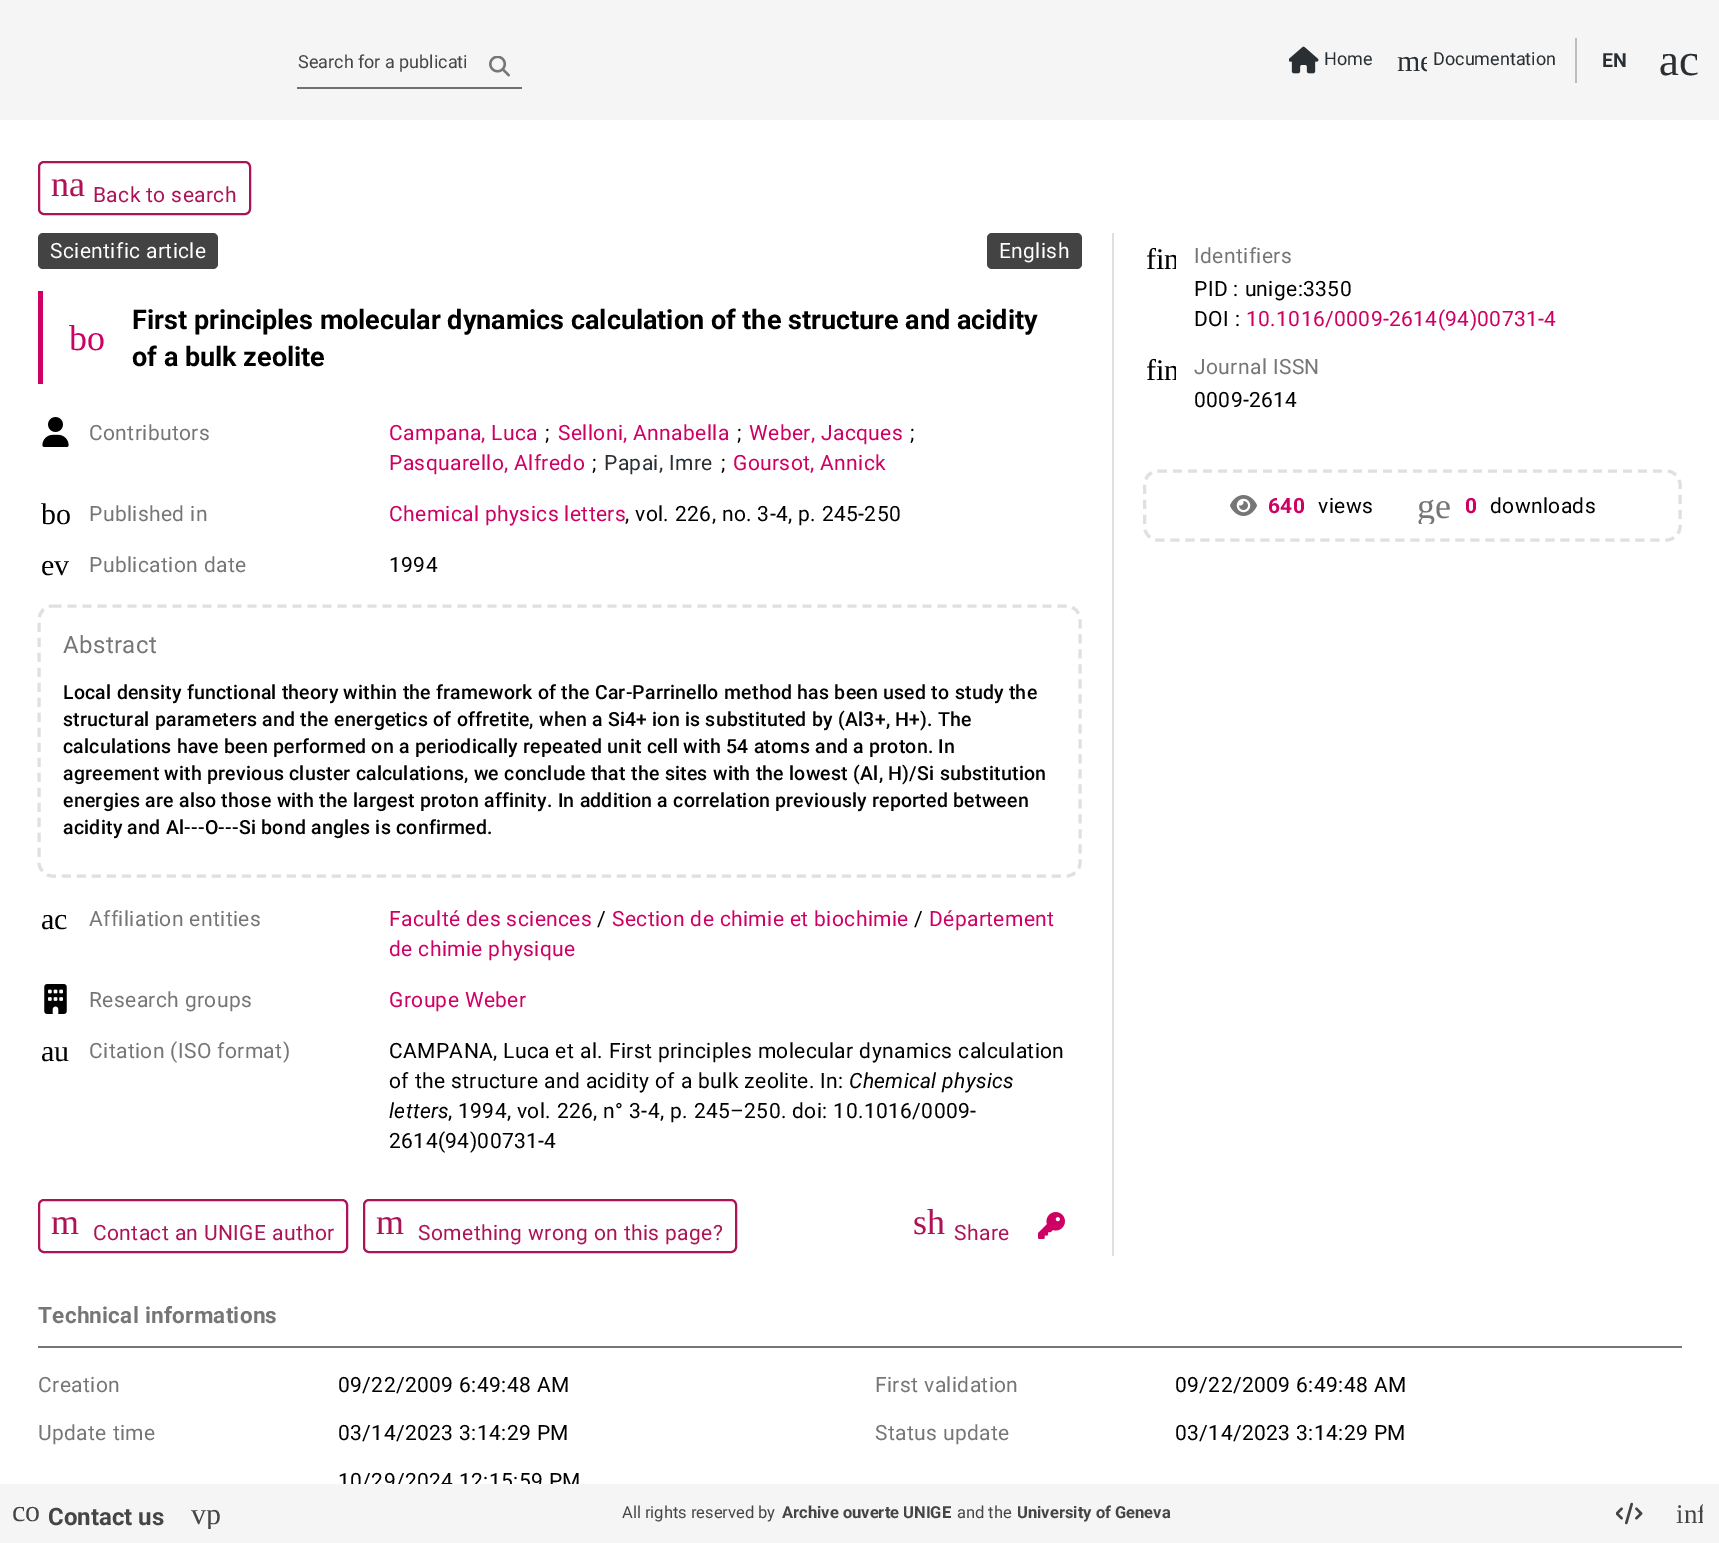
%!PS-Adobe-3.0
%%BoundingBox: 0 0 1719 1543
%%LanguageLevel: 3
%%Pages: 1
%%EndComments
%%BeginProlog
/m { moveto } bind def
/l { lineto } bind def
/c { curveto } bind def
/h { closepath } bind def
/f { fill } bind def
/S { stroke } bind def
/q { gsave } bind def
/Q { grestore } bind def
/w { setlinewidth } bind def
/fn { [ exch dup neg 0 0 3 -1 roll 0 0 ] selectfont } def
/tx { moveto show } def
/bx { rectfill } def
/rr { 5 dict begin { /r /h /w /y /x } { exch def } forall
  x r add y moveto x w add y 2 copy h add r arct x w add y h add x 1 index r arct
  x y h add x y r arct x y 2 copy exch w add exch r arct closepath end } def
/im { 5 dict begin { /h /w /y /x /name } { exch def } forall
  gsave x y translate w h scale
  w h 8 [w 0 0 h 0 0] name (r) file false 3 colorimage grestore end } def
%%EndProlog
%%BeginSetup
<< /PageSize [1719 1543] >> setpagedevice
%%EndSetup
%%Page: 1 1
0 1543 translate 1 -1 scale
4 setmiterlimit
1 setgray
0 0 1719 1543 bx
0.961 setgray
0 0 1719 120 bx
/Roboto-Regular 18 fn
0.271 setgray
(Search for a publicati) 298 68 tx
(image0.raw) 489 56 21 21 im
0.443 setgray
297 87 225 2 bx
(image1.raw) 1289 46 30 28 im
0.161 0.184 0.2 setrgbcolor
(Home) 1324 65 tx
q
1397 45 30 30 rectclip
/LiberationSerif-Regular 30 fn
(me) 1397 71 tx
Q
(Documentation) 1433 65 tx
0.741 setgray
1575 38 2 45 bx
/Roboto-Bold 19.5 fn
0.161 0.184 0.2 setrgbcolor
(EN) 1602 67 tx
/LiberationSerif-Regular 45 fn
(ac) 1659 75 tx
0.678 0.078 0.341 setrgbcolor
2 w
39 162 211 52 5 rr S
/LiberationSerif-Regular 36 fn
(na) 51 196 tx
/Roboto-Regular 21 fn
93 202 m 0.38 0 (Back to search) ashow
0.878 setgray
1112 233 2 1023 bx
0.263 setgray
38 233 180 36 5 rr f
1 setgray
50 258 m 0.38 0 (Scientific article) ashow
0.263 setgray
987 233 95 36 5 rr f
1 setgray
999 258 m 0.38 0 (English) ashow
0.812 0 0.388 setrgbcolor
38 291 5 93 bx
/LiberationSerif-Regular 36 fn
(bo) 69 350 tx
/Roboto-Bold 27 fn
0 setgray
(First principles molecular dynamics calculation of the structure and acidity) 132 329 tx
(of a bulk zeolite) 132 366 tx
(image2.raw) 42 417 27 30 im
/Roboto-Regular 21 fn
0.463 setgray
89 440 m 0.38 0 (Contributors) ashow
0.812 0 0.388 setrgbcolor
389 440 m 0.38 0 (Campana, Luca) ashow
0 setgray
545 440 m 0.38 0 (;) ashow
0.812 0 0.388 setrgbcolor
558 440 m 0.38 0 (Selloni, Annabella) ashow
0 setgray
737 440 m 0.38 0 (;) ashow
0.812 0 0.388 setrgbcolor
749 440 m 0.38 0 (Weber, Jacques) ashow
0 setgray
910 440 m 0.38 0 (;) ashow
0.812 0 0.388 setrgbcolor
389 470 m 0.38 0 (Pasquarello, Alfredo) ashow
0 setgray
592 470 m 0.38 0 (;) ashow
0.161 0.184 0.2 setrgbcolor
604 470 m 0.38 0 (Papai, Imre) ashow
0 setgray
721 470 m 0.38 0 (;) ashow
0.812 0 0.388 setrgbcolor
733 470 m 0.38 0 (Goursot, Annick) ashow
/LiberationSerif-Regular 30 fn
0 setgray
(bo) 41 524 tx
/Roboto-Regular 21 fn
0.463 setgray
89 521 m 0.38 0 (Published in) ashow
0.812 0 0.388 setrgbcolor
389 521 m 0.38 0 (Chemical physics letters) ashow
0 setgray
625 521 m 0.38 0 (, vol. 226, no. 3-4, p. 245-250) ashow
/LiberationSerif-Regular 30 fn
(ev) 41 575 tx
/Roboto-Regular 21 fn
0.463 setgray
89 572 m 0.38 0 (Publication date) ashow
0 setgray
389 572 m 0.38 0 (1994) ashow
0.878 setgray
3 w
[9 6] 0 setdash
52.5 606 m 1066.5 606 l 1074 606 1080 612 1080 619.5 c 1080 862.5 l 1080 870 1074 876 1066.5 876 c 52.5 876 l 45 876 39 870 39 862.5 c 39 619.5 l 39 612 45 606 52.5 606 c h S
/Roboto-Regular 24 fn
0.463 setgray
63 653 m 0.38 0 (Abstract) ashow
/Roboto-Medium 19.5 fn
0 setgray
63 699 m 0.24 0 (Local density functional theory within the framework of the Car-Parrinello method has been used to study the) ashow
63 726 m 0.24 0 (structural parameters and the energetics of offretite, when a Si4+ ion is substituted by \(Al3+, H+\). The) ashow
63 753 m 0.24 0 (calculations have been performed on a periodically repeated unit cell with 54 atoms and a proton. In) ashow
63 780 m 0.24 0 (agreement with previous cluster calculations, we conclude that the sites with the lowest \(Al, H\)/Si substitution) ashow
63 807 m 0.24 0 (energies are also those with the largest proton affinity. In addition a correlation previously reported between) ashow
63 834 m 0.24 0 (acidity and Al---O---Si bond angles is confirmed.) ashow
/LiberationSerif-Regular 30 fn
(ac) 41 929 tx
/Roboto-Regular 21 fn
0.463 setgray
89 926 m 0.38 0 (Affiliation entities) ashow
0.812 0 0.388 setrgbcolor
389 926 m 0.38 0 (Faculté des sciences) ashow
0 setgray
597 926 m 0.38 0 (/) ashow
0.812 0 0.388 setrgbcolor
612 926 m 0.38 0 (Section de chimie et biochimie) ashow
0 setgray
914 926 m 0.38 0 (/) ashow
0.812 0 0.388 setrgbcolor
929 926 m 0.38 0 (Département) ashow
389 956 m 0.38 0 (de chimie physique) ashow
(image3.raw) 44 984 23 30 im
0.463 setgray
89 1007 m 0.38 0 (Research groups) ashow
0.812 0 0.388 setrgbcolor
389 1007 m 0.38 0 (Groupe Weber) ashow
/LiberationSerif-Regular 30 fn
0 setgray
(au) 41 1061 tx
/Roboto-Regular 21 fn
0.463 setgray
89 1058 m 0.38 0 (Citation \(ISO format\)) ashow
0 setgray
389 1058 m 0.38 0 (CAMPANA, Luca et al. First principles molecular dynamics calculation) ashow
389 1088 m 0.38 0 (of the structure and acidity of a bulk zeolite. In:) ashow
/Roboto-Italic 21 fn
849 1088 m 0.38 0 (Chemical physics) ashow
389 1118 m 0.38 0 (letters) ashow
/Roboto-Regular 21 fn
448 1118 m 0.38 0 (, 1994, vol. 226, n° 3-4, p. 245–250. doi: 10.1016/0009-) ashow
389 1148 m 0.38 0 (2614\(94\)00731-4) ashow
0.678 0.078 0.341 setrgbcolor
2 w
[] 0 setdash
39 1200 308 52 5 rr S
/LiberationSerif-Regular 36 fn
(m) 51 1234 tx
/Roboto-Regular 21 fn
93 1240 m 0.38 0 (Contact an UNIGE author) ashow
364 1200 372 52 5 rr S
/LiberationSerif-Regular 36 fn
(m) 376 1234 tx
/Roboto-Regular 21 fn
418 1240 m 0.38 0 (Something wrong on this page?) ashow
/LiberationSerif-Regular 36 fn
(sh) 913 1234 tx
/Roboto-Regular 21 fn
954 1240 m 0.38 0 (Share) ashow
(image4.raw) 1038 1212 27 27 im
q
1146 243 30 30 rectclip
/LiberationSerif-Regular 30 fn
0 setgray
(fin) 1146 269 tx
Q
0.463 setgray
1194 263 m 0.38 0 (Identifiers) ashow
0 setgray
1194 296 m 0.38 0 (PID : unige:3350) ashow
1194 326 m 0.38 0 (DOI :) ashow
0.812 0 0.388 setrgbcolor
1246 326 m 0.38 0 (10.1016/0009-2614\(94\)00731-4) ashow
q
1146 354 30 30 rectclip
/LiberationSerif-Regular 30 fn
0 setgray
(fin) 1146 380 tx
Q
0.463 setgray
1194 374 m 0.38 0 (Journal ISSN) ashow
0 setgray
1194 407 m 0.38 0 (0009-2614) ashow
0.878 setgray
3 w
[9 6] 0 setdash
1158 471 m 1666.5 471 l 1674 471 1680 477 1680 484.5 c 1680 526.5 l 1680 534 1674 540 1666.5 540 c 1158 540 l 1150.5 540 1144.5 534 1144.5 526.5 c 1144.5 484.5 l 1144.5 477 1150.5 471 1158 471 c h S
(image5.raw) 1230 495 27 21 im
/Roboto-Bold 21 fn
0.812 0 0.388 setrgbcolor
1268 513 m 0.38 0 (640) ashow
/Roboto-Regular 21 fn
0 setgray
1318 513 m 0.38 0 (views) ashow
q
1418 488 36 36 rectclip
/LiberationSerif-Regular 36 fn
0.463 setgray
(ge) 1417 518 tx
Q
/Roboto-Bold 21 fn
0.812 0 0.388 setrgbcolor
1465 513 m 0.38 0 (0) ashow
/Roboto-Regular 21 fn
0 setgray
1490 513 m 0.38 0 (downloads) ashow
0.463 setgray
38 1346 1644 2 bx
/Roboto-Bold 22.5 fn
38 1323 m 0.25 0 (Technical informations) ashow
/Roboto-Regular 21 fn
38 1392 m 0.38 0 (Creation) ashow
0 setgray
338 1392 m 0.38 0 (09/22/2009 6:49:48 AM) ashow
0.463 setgray
875 1392 m 0.38 0 (First validation) ashow
0 setgray
1175 1392 m 0.38 0 (09/22/2009 6:49:48 AM) ashow
0.463 setgray
38 1440 m 0.38 0 (Update time) ashow
0 setgray
338 1440 m 0.38 0 (03/14/2023 3:14:29 PM) ashow
0.463 setgray
875 1440 m 0.38 0 (Status update) ashow
0 setgray
1175 1440 m 0.38 0 (03/14/2023 3:14:29 PM) ashow
338 1488 m 0.38 0 (10/29/2024 12:15:59 PM) ashow
0.961 setgray
0 1484 1719 59 bx
/LiberationSerif-Regular 30 fn
0.271 setgray
(co) 12 1521 tx
/Roboto-Bold 24 fn
(Contact us) 48 1525 tx
q
191 1499 30 30 rectclip
/LiberationSerif-Regular 30 fn
(vp) 191 1524 tx
Q
/Roboto-Regular 16.5 fn
(All rights reserved by) 622 1518 tx
/Roboto-Bold 16.5 fn
(Archive ouverte UNIGE) 782 1518 tx
/Roboto-Regular 16.5 fn
(and the) 957 1518 tx
/Roboto-Bold 16.5 fn
(University of Geneva) 1017 1518 tx
(image6.raw) 1616 1502 27 23 im
q
1676 1500 27 27 rectclip
/LiberationSerif-Regular 27 fn
(inf) 1676 1523 tx
Q
showpage
%%EOF
